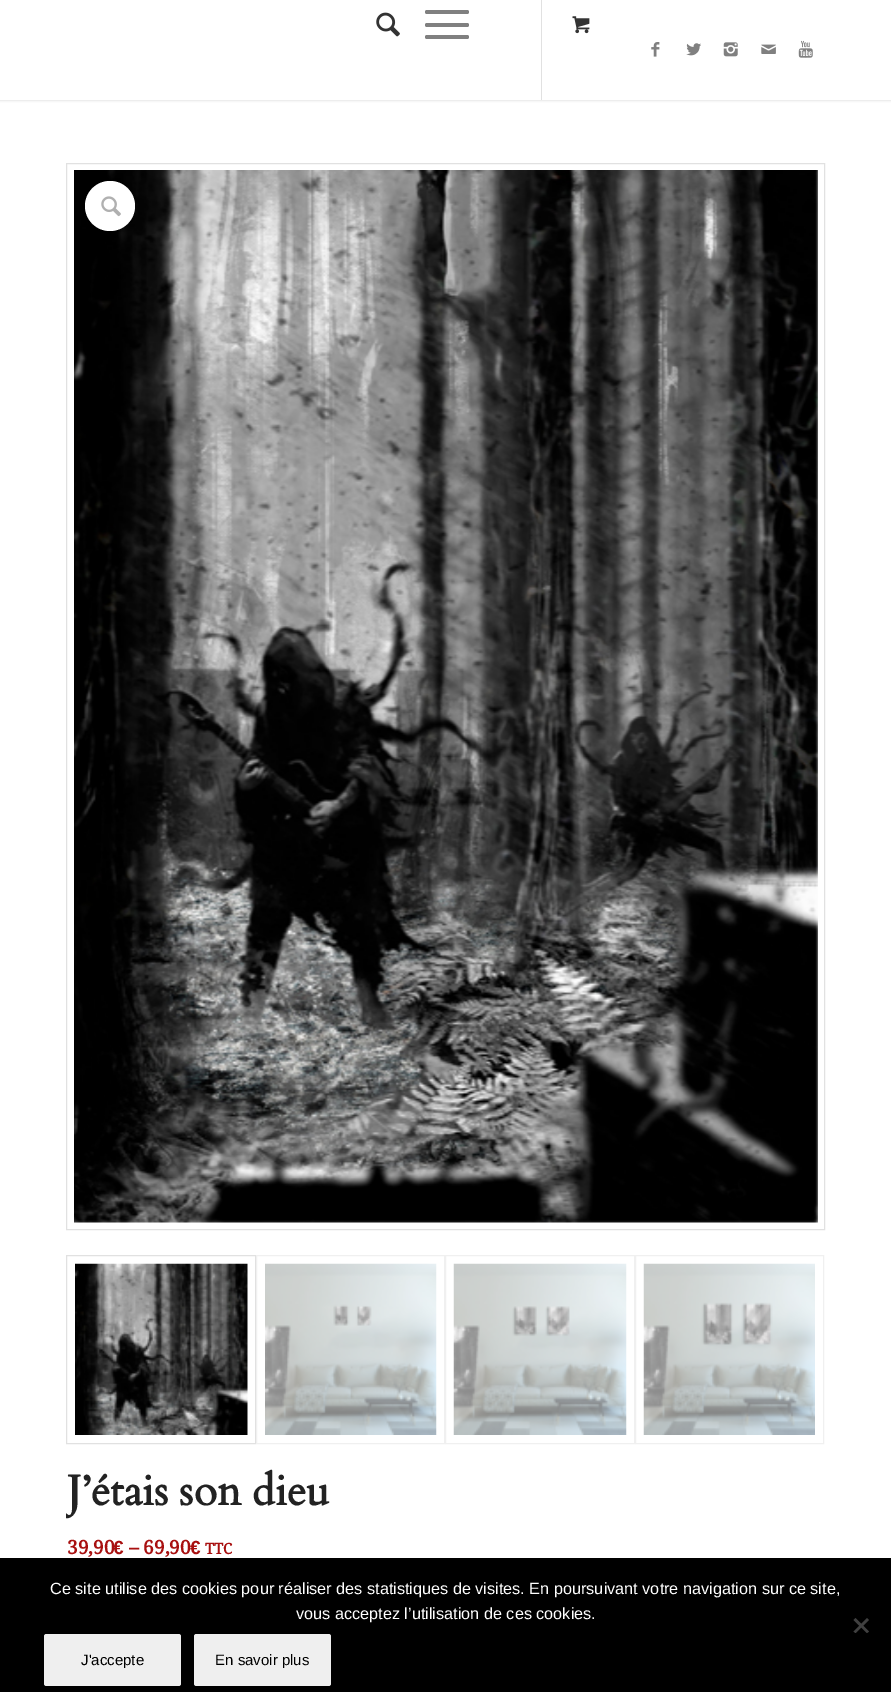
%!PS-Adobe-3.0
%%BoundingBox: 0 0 891 1692
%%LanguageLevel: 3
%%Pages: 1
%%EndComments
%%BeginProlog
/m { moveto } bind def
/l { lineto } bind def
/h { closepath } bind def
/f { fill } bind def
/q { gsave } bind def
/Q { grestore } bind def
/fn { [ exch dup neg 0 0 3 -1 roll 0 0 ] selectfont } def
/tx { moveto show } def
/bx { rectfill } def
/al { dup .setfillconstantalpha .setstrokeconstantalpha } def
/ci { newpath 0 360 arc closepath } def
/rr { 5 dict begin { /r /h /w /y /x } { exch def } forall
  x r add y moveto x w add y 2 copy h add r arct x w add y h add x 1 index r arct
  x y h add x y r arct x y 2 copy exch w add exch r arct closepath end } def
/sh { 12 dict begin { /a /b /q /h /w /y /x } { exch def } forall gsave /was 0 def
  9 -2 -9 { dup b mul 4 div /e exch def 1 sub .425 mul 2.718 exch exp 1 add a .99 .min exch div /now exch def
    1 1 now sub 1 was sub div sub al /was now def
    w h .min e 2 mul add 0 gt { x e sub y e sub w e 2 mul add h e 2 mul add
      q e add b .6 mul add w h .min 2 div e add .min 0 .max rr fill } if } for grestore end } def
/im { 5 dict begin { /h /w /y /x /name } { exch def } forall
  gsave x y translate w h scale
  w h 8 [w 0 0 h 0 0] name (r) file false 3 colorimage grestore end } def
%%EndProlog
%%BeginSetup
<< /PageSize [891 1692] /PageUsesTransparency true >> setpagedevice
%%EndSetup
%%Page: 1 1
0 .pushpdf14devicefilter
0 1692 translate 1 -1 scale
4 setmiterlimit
1 setgray
0 0 891 1692 bx
0 setgray
-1 -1 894 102 0 1 0.1 sh
1 setgray
0 0 891 100 bx
0.882 setgray
541 0 1 100 bx
(image0.raw) 376 12 24 25 im
0.502 setgray
425 23 44 4 2 rr f
425 10 44 4 2 rr f
425 35 44 4 2 rr f
(image1.raw) 572 16 18 18 im
(image2.raw) 651 42 9 15 im
(image3.raw) 686 43 15 13 im
(image4.raw) 723 42 15 15 im
(image5.raw) 761 44 15 10 im
(image6.raw) 798 40 15 18 im
0.882 setgray
66.5 163.5 758 1066 rectstroke
(image7.raw) 74 170 744 1053 im
66.5 1255.5 189 188 rectstroke
(image8.raw) 75 1263 173 172 im
0.941 setgray
256.5 1255.5 188 188 rectstroke
(image9.raw) 265 1263 172 172 im
445.5 1255.5 189 188 rectstroke
(image10.raw) 453 1263 174 172 im
635.5 1255.5 188 188 rectstroke
(image11.raw) 643 1263 172 172 im
1 setgray
110 206 25 ci f
(image12.raw) 101 196 20 21 im
q
66 1469 759 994 rectclip
/Cardo-Bold 42.5 fn
0.133 setgray
(J’étais son dieu) 67 1505 tx
Q
/DroidSerif-Bold 19 fn
0.659 0.063 0.063 setrgbcolor
(39,90) 67 1554 tx
/LiberationSans-Bold 19 fn
(€) 113 1554 tx
/DroidSerif-Bold 19 fn
(– 69,90) 129 1554 tx
/LiberationSans-Bold 19 fn
(€) 190 1554 tx
/DroidSerif-Bold 15 fn
(TTC) 205 1554 tx
0 setgray
0 1558 891 134 bx
/LiberationSans-Regular 16.25 fn
1 setgray
(Ce site utilise des cookies pour réaliser des statistiques de visites. En poursuivant votre navigation sur ce site,) 50 1594 tx
(vous acceptez l’utilisation de ces cookies.) 296 1619 tx
0.251 setgray
867 1618 m 869 1620 l 855.5 1633 l 853.5 1631.5 l h f
853.5 1620 m 855.5 1618 l 869 1631.5 l 867 1633 l h f
0.937 setgray
44 1634 137 52 2.5 rr f
/LiberationSans-Regular 15 fn
0 setgray
(J'accepte) 81 1665 tx
0.937 setgray
194 1634 137 52 2.5 rr f
0 setgray
(En savoir plus) 215 1665 tx
.poppdf14devicefilter showpage
%%EOF
